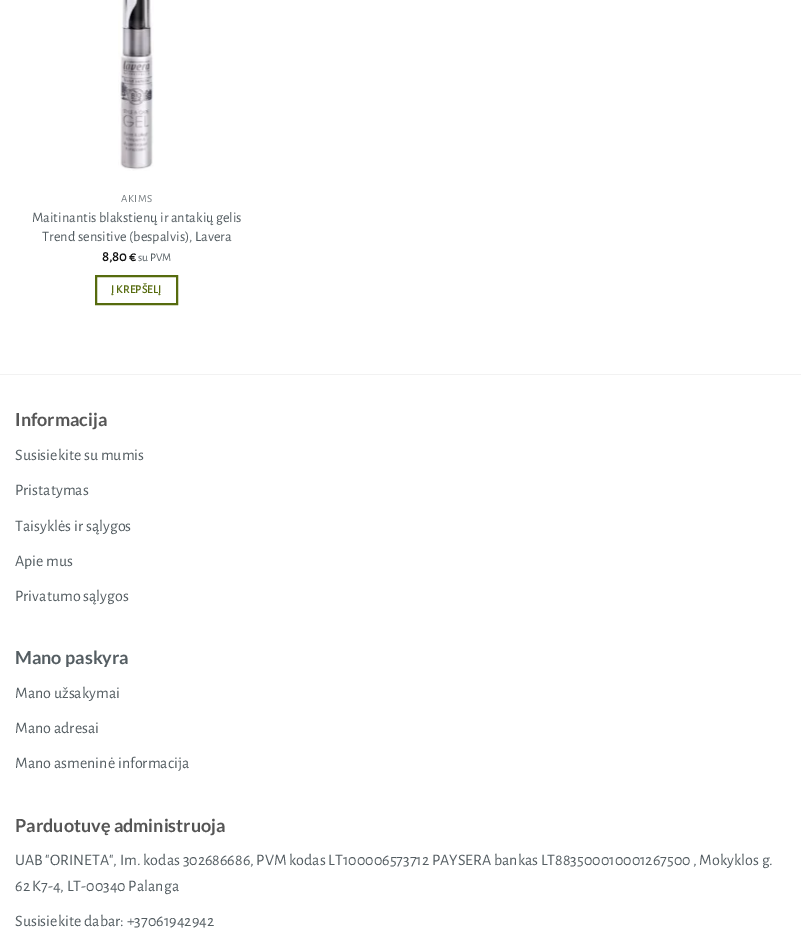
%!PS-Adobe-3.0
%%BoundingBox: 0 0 801 941
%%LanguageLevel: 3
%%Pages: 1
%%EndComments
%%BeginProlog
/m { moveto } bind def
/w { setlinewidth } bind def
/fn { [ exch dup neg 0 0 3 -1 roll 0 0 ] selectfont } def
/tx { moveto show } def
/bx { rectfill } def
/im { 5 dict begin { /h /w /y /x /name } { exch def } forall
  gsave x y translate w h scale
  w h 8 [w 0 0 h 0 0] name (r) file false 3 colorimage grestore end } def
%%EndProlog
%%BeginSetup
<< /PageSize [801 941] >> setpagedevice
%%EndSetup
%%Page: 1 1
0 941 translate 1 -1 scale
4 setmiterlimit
1 setgray
0 0 801 941 bx
(image0.raw) 118 0 36 171 im
/AlegreyaSans-Regular 11 fn
0.463 0.49 0.506 setrgbcolor
121 202 m 0.5 0 (AKIMS) ashow
/AlegreyaSans-Regular 14.4 fn
0.329 0.365 0.384 setrgbcolor
(Maitinantis blakstienų ir antakių gelis) 32 222 tx
(Trend sensitive \(bespalvis\), Lavera) 42 241 tx
/AlegreyaSans-Bold 14.4 fn
0.067 setgray
(8,80 €) 102 261 tx
/AlegreyaSans-Regular 11.5 fn
0.329 0.365 0.384 setrgbcolor
(su PVM) 138 261 tx
0.337 0.42 0.055 setrgbcolor
2 w
96 276 81 28 rectstroke
/AlegreyaSans-Bold 11.5 fn
111 293 m 0.25 0 (Į KREPŠELĮ) ashow
0.949 setgray
0 374 801 1 bx
/Lato-Bold 18 fn
0.333 setgray
(Informacija) 15 426 tx
/AlegreyaSans-Regular 16 fn
0.329 0.365 0.384 setrgbcolor
(Susisiekite su mumis) 15 460 tx
(Pristatymas) 15 495 tx
(Taisyklės ir sąlygos) 15 531 tx
(Apie mus) 15 566 tx
(Privatumo sąlygos) 15 601 tx
/Lato-Bold 18 fn
(Mano paskyra) 15 664 tx
/AlegreyaSans-Regular 16 fn
(Mano užsakymai) 15 698 tx
(Mano adresai) 15 733 tx
(Mano asmeninė informacija) 15 768 tx
/Lato-Bold 18 fn
0.333 setgray
(Parduotuvę administruoja) 15 832 tx
/AlegreyaSans-Regular 16 fn
0.329 0.365 0.384 setrgbcolor
(UAB "ORINETA", Im. kodas 302686686, PVM kodas LT100006573712 PAYSERA bankas LT883500010001267500 , Mokyklos g.) 15 865 tx
(62 K7-4, LT-00340 Palanga) 15 891 tx
(Susisiekite dabar: +37061942942) 15 926 tx
showpage
%%EOF
